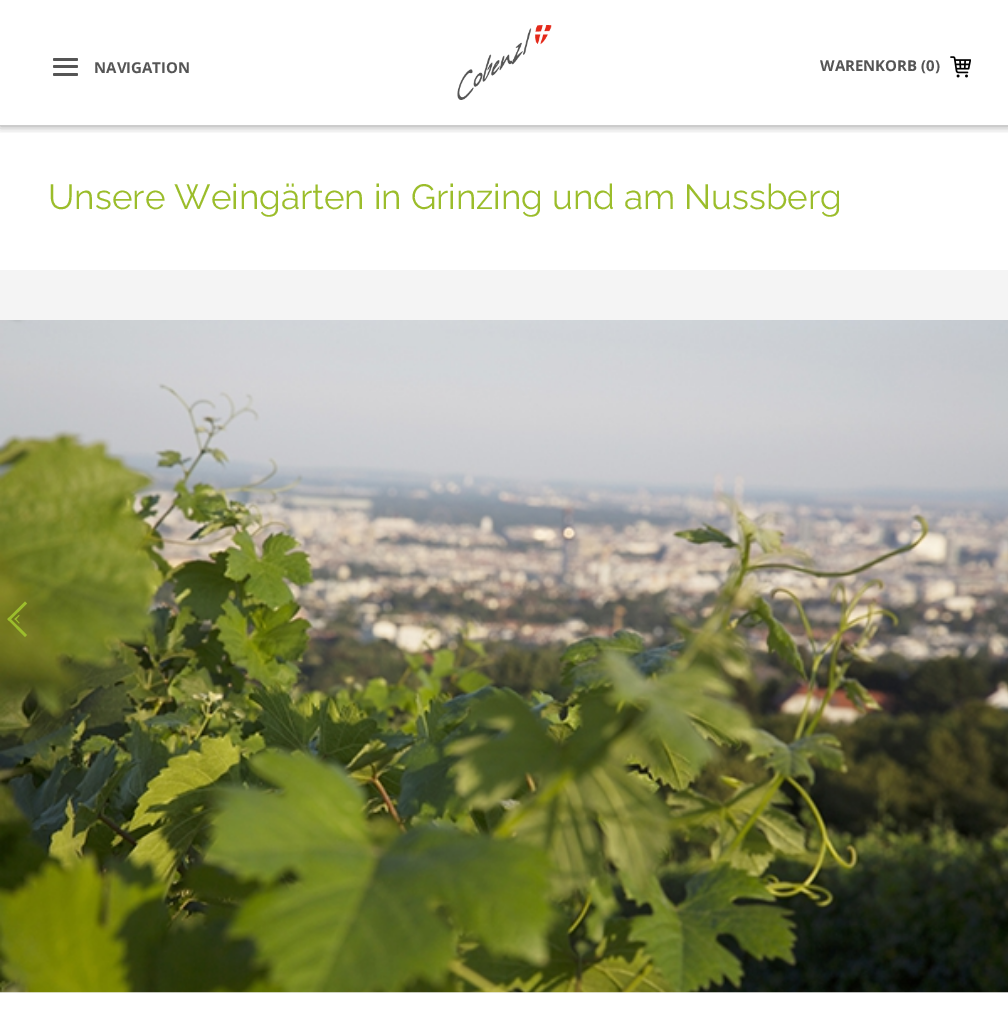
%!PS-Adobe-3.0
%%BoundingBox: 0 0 1008 1027
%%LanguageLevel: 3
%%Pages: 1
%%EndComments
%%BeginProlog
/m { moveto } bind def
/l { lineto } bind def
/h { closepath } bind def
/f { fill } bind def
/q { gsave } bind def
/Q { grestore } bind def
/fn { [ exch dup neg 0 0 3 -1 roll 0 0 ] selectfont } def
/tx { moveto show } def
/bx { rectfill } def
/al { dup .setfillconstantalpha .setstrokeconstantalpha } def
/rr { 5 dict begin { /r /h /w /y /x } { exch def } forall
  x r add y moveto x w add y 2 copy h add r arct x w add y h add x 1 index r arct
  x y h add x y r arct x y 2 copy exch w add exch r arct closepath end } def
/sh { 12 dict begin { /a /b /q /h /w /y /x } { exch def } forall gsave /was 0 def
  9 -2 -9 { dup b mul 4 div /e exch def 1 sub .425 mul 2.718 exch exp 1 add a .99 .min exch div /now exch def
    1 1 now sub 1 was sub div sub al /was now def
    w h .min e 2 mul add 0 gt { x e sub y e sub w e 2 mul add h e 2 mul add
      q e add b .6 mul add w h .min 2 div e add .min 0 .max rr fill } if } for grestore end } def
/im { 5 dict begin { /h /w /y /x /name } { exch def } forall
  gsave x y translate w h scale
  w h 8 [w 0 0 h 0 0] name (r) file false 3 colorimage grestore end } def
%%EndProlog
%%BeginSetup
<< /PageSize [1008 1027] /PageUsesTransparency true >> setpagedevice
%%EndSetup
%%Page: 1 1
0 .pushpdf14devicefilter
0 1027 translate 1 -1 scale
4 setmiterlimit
1 setgray
0 0 1008 1027 bx
q
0 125 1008 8 rectclip
0 setgray
0 1 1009 125 0 4.5 0.4 sh
Q
0.333 setgray
53 65 25 3 1.5 rr f
53 58 25 3 1.5 rr f
53 73 25 3 1.5 rr f
/OpenSans-Bold 15 fn
(NAVIGATION) 94 73 tx
(image0.raw) 457 25 95 75 im
(image1.raw) 950 56 21 22 im
(WARENKORB \(0\)) 820 71 tx
/Raleway-Regular 35 fn
0.608 0.741 0.169 setrgbcolor
(Unsere Weingärten in Grinzing und am Nussberg) 48 209 tx
0.957 setgray
0 270 1008 723 bx
(image2.raw) 0 320 1008 673 im
0.612 0.741 0.173 setrgbcolor
7.5 619 m 25 601.5 l 27 603.5 l 9 621 l h f
7.5 619 m 9 617.5 l 27 635 l 25 637 l h f
14.5 619 m 19 615 l 19.5 615.5 l 15.5 620 l h f
14.5 619 m 15.5 618.5 l 19.5 623 l 19 623.5 l h f
.poppdf14devicefilter showpage
%%EOF
